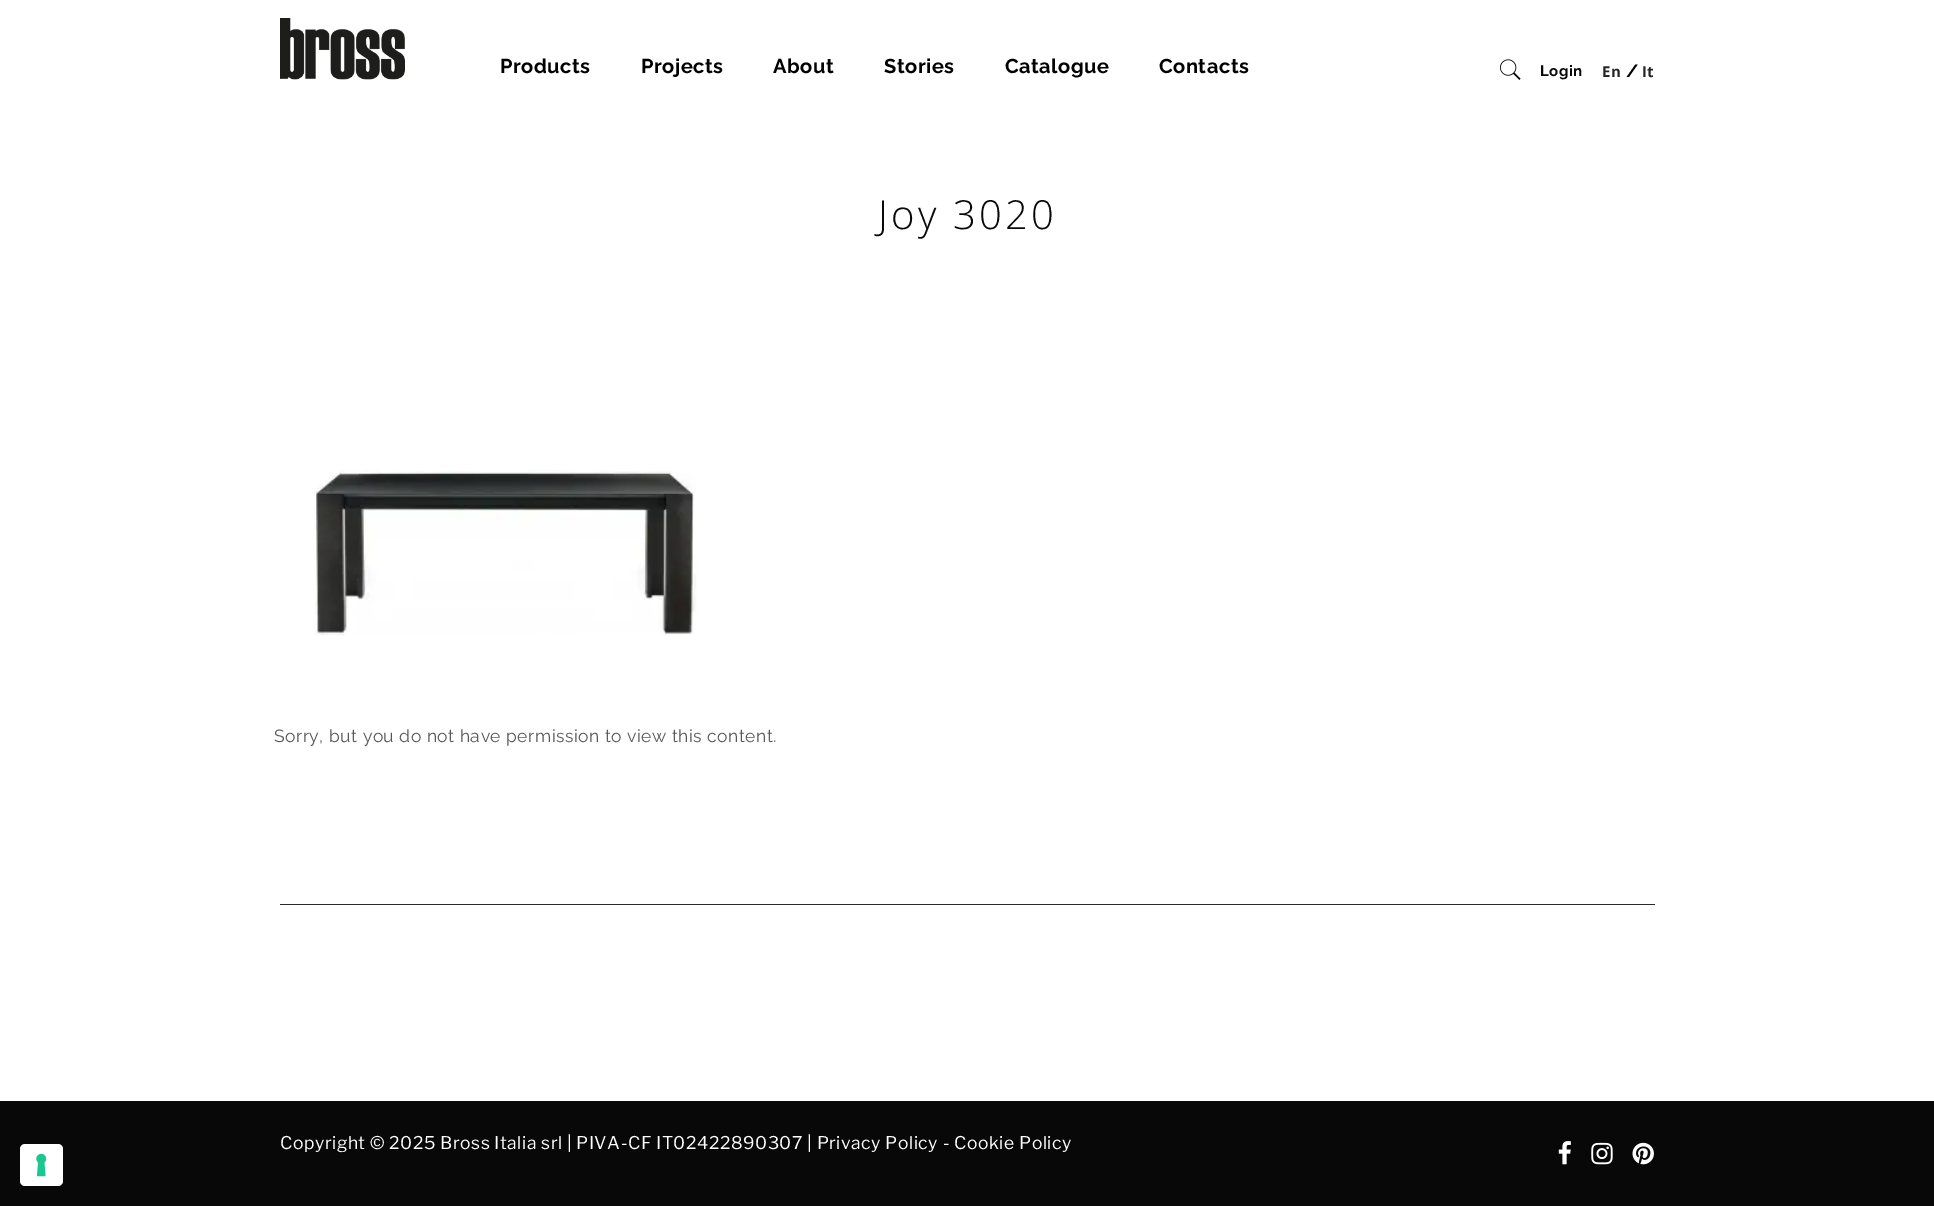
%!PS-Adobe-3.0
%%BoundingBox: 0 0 1934 1206
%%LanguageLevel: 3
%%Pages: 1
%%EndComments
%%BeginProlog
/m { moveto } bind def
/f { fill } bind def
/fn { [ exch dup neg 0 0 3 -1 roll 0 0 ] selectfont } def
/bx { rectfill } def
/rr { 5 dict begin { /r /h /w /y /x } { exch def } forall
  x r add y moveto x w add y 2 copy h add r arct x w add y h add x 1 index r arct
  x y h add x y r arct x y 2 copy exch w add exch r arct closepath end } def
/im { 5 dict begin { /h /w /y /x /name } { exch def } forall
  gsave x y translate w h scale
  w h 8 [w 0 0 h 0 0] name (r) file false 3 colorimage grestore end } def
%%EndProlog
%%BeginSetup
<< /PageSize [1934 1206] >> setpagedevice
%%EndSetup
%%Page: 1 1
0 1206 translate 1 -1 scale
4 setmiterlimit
1 setgray
0 0 1934 1206 bx
(image0.raw) 280 18 125 62 im
/Raleway-Bold 20 fn
0 setgray
500 73 m 0.53 0 (Products) ashow
641 73 m 0.53 0 (Projects) ashow
773 73 m 0.53 0 (About) ashow
884 73 m 0.53 0 (Stories) ashow
1005 73 m 0.53 0 (Catalogue) ashow
1159 73 m 0.53 0 (Contacts) ashow
(image1.raw) 1500 59 21 21 im
/Raleway-Bold 15 fn
0.035 setgray
1540 76 m 0.53 0 (Login) ashow
/OpenSans-Bold 15 fn
0.149 setgray
1602 77 m 0.53 0 (En) ashow
/Raleway-Bold 17.5 fn
0 setgray
1626 77 m 0.53 0 (/) ashow
/OpenSans-Bold 15 fn
0.149 setgray
1642 77 m 0.53 0 (It) ashow
/OpenSans-Light 40 fn
0.035 setgray
878 229 m 3.25 0 (Joy 3020) ashow
(image2.raw) 314 470 383 166 im
/Raleway-Regular 17.5 fn
0.345 setgray
274 742 m 0.53 0 (Sorry, but you do not have permission to view this content.) ashow
0.165 setgray
280 904 1375 1 bx
0.031 setgray
0 1101 1934 105 bx
1 setgray
20 1144 43 42 5 rr f
(image3.raw) 36 1153 11 24 im
/LibreFranklin-Regular 17.5 fn
280 1149 m 0.53 0 (Copyright © 2025 Bross Italia srl | PIVA-CF IT02422890307 | Privacy Policy - Cookie Policy) ashow
(image4.raw) 1558 1141 13 24 im
(image5.raw) 1591 1142 22 23 im
(image6.raw) 1632 1142 22 23 im
showpage
%%EOF
